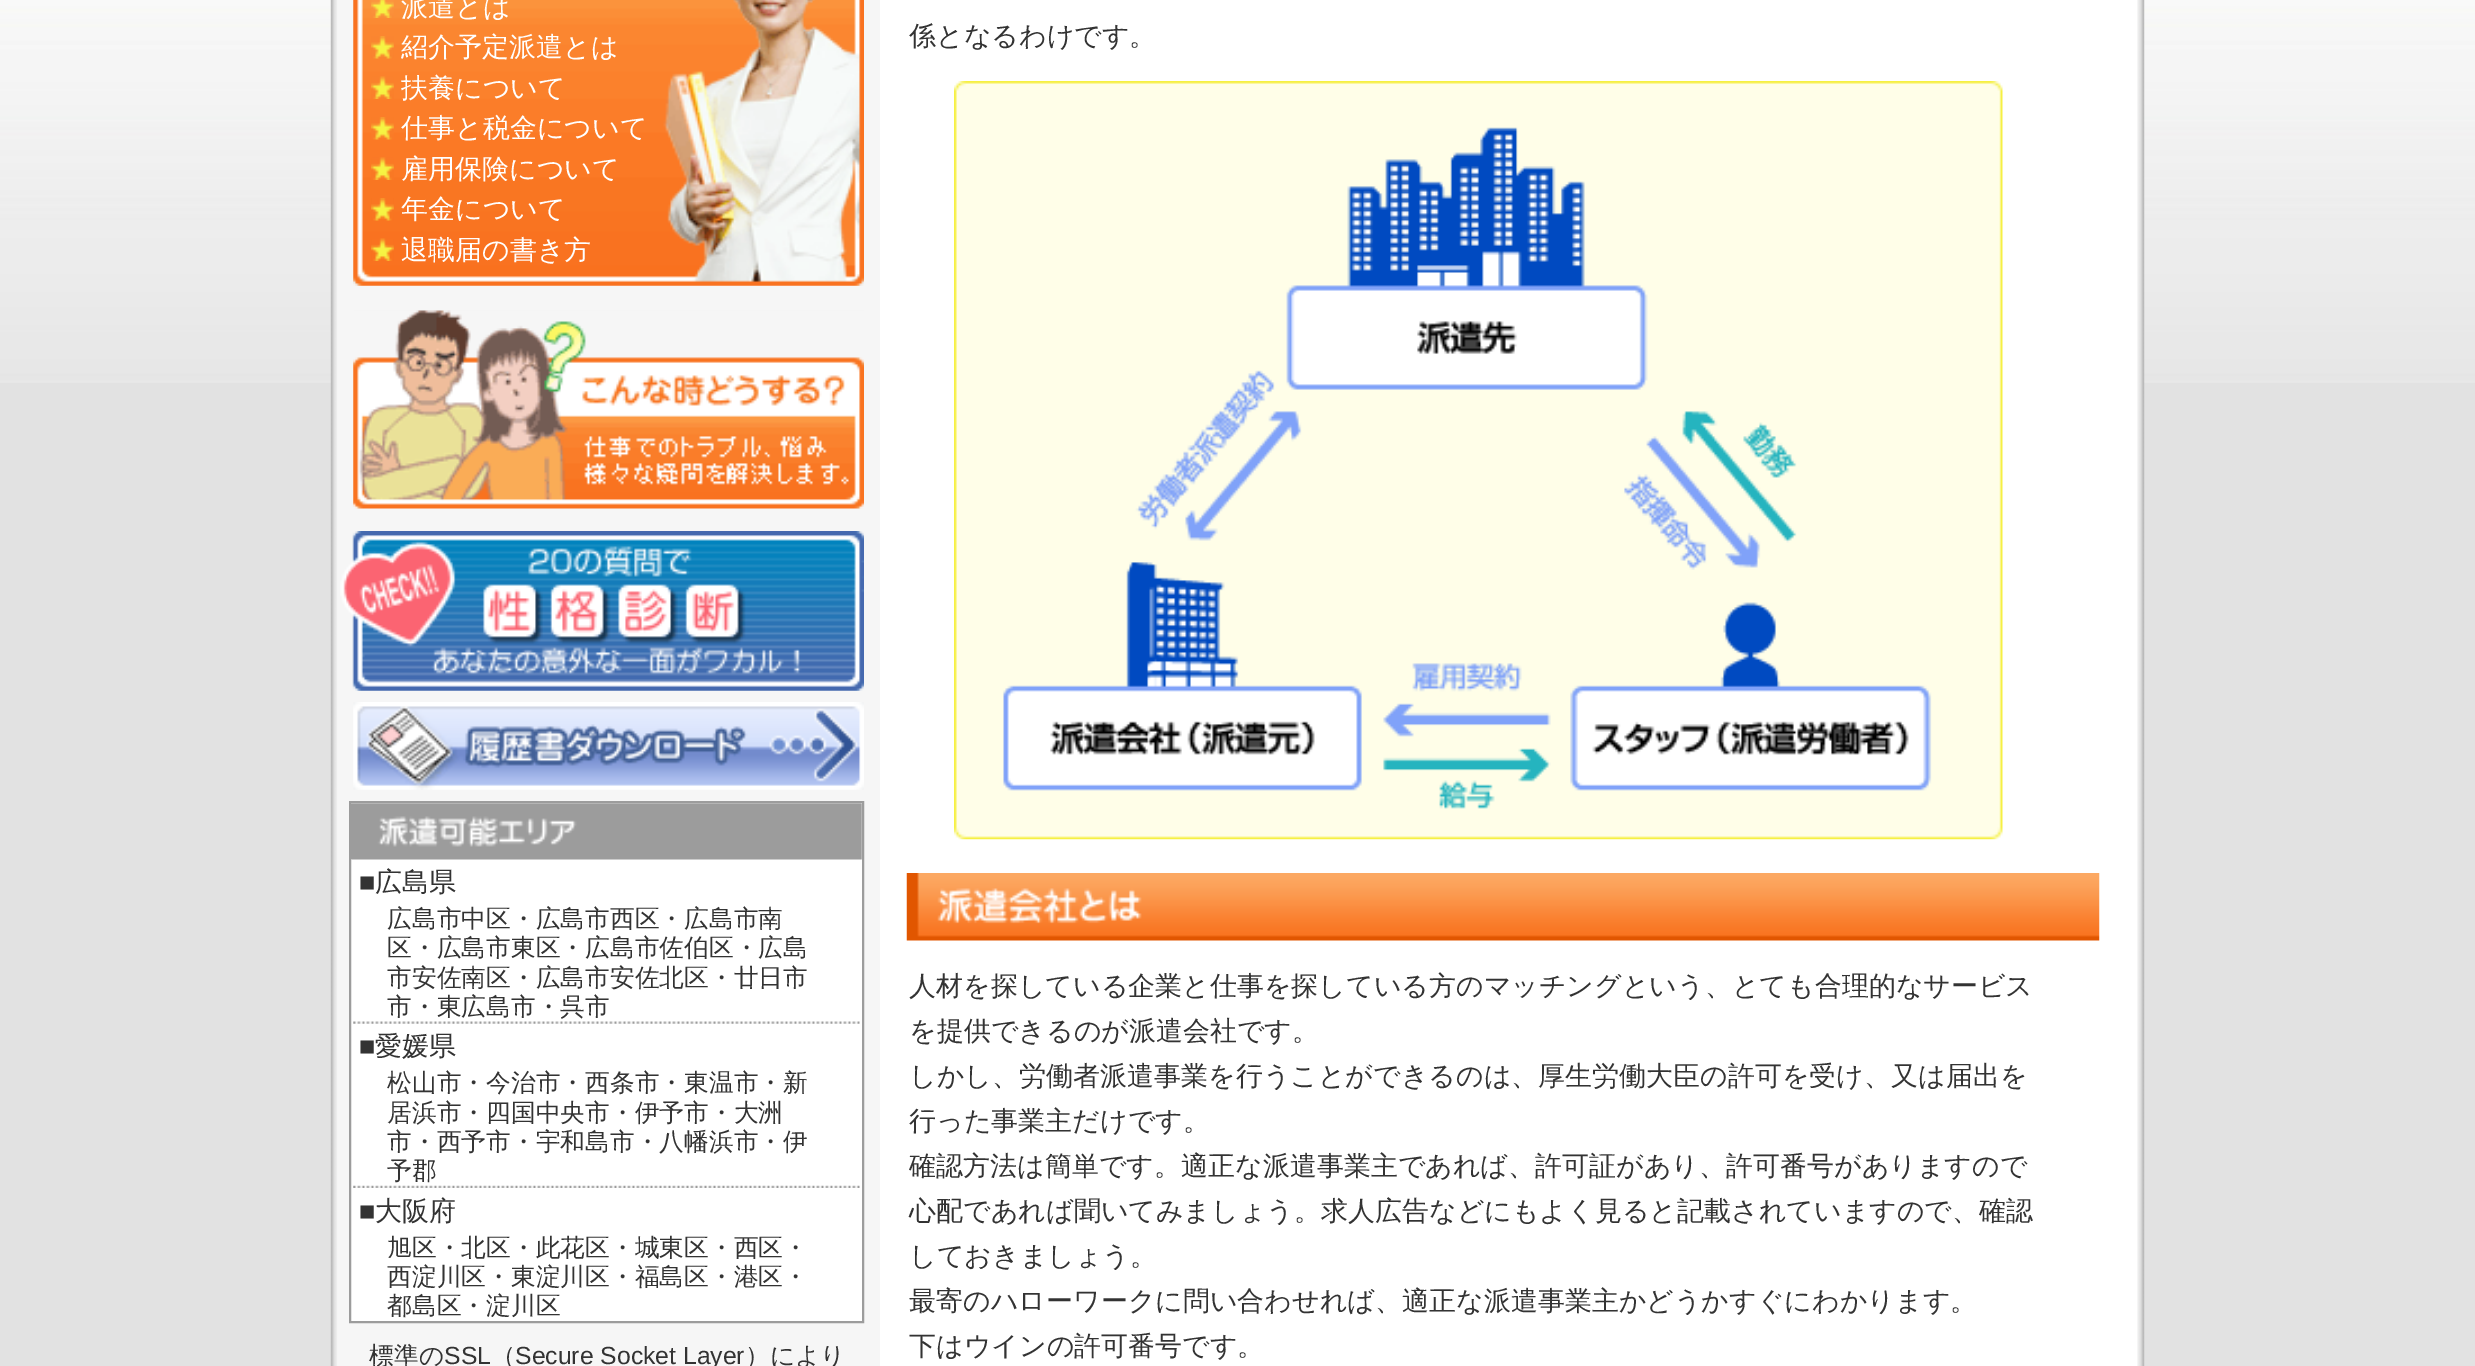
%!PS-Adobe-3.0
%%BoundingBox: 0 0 2475 1366
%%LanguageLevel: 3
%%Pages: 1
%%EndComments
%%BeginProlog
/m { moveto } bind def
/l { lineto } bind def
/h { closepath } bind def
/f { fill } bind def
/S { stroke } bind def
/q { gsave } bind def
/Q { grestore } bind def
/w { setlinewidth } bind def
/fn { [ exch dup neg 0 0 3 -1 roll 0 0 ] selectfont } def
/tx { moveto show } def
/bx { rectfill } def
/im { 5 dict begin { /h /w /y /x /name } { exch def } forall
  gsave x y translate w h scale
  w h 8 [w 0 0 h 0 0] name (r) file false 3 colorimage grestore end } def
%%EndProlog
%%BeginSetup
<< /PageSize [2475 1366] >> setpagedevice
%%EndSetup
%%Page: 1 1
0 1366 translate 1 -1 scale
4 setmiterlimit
0.886 setgray
0 0 2475 1366 bx
(image0.raw) 0 0 2475 383 im
1 setgray
337 0 1801 1366 bx
(image1.raw) 330 0 8 1366 im
0.965 setgray
338 0 542 1366 bx
(image2.raw) 353 0 511 286 im
(image3.raw) 371 0 23 18 im
/WenQuanYiZenHei-Medium 27 fn
1 setgray
(派遣とは) 401 16 tx
(image4.raw) 371 36 23 23 im
(紹介予定派遣とは) 401 56 tx
(image5.raw) 371 76 23 23 im
(扶養について) 401 97 tx
(image6.raw) 371 117 23 23 im
(仕事と税金について) 401 137 tx
(image7.raw) 371 157 23 23 im
(雇用保険について) 401 178 tx
(image8.raw) 371 198 23 23 im
(年金について) 401 218 tx
(image9.raw) 371 238 23 23 im
(退職届の書き方) 401 259 tx
(image10.raw) 353 310 511 199 im
(image11.raw) 340 531 524 160 im
(image12.raw) 353 702 511 88 im
350 802 m 863 802 l 863 1322 l 350 1322 l h q f Q
0.612 setgray
2 w
S
(image13.raw) 351 803 511 57 im
/LiberationSans-Regular 27 fn
0.2 setgray
(■) 359 891 tx
/WenQuanYiZenHei-Medium 27 fn
(広島県) 375 891 tx
/WenQuanYiZenHei-Medium 24.75 fn
(広島市中区・広島市西区・広島市南) 387 927 tx
(区・広島市東区・広島市佐伯区・広島) 387 956 tx
(市安佐南区・広島市安佐北区・廿日市) 387 986 tx
(市・東広島市・呉市) 387 1015 tx
(image14.raw) 353 1021 507 3 im
/LiberationSans-Regular 27 fn
(■) 359 1055 tx
/WenQuanYiZenHei-Medium 27 fn
(愛媛県) 375 1055 tx
/WenQuanYiZenHei-Medium 24.75 fn
(松山市・今治市・西条市・東温市・新) 387 1091 tx
(居浜市・四国中央市・伊予市・大洲) 387 1121 tx
(市・西予市・宇和島市・八幡浜市・伊) 387 1150 tx
(予郡) 387 1179 tx
(image15.raw) 353 1185 507 3 im
/LiberationSans-Regular 27 fn
(■) 359 1220 tx
/WenQuanYiZenHei-Medium 27 fn
(大阪府) 375 1220 tx
/WenQuanYiZenHei-Medium 24.75 fn
(旭区・北区・此花区・城東区・西区・) 387 1256 tx
(西淀川区・東淀川区・福島区・港区・) 387 1285 tx
(都島区・淀川区) 387 1314 tx
(標準の) 369 1364 tx
/LiberationSans-Regular 24.75 fn
(SSL) 444 1364 tx
/WenQuanYiZenHei-Medium 24.75 fn
(（) 491 1364 tx
/LiberationSans-Regular 24.75 fn
(Secure Socket Layer) 515 1364 tx
/WenQuanYiZenHei-Medium 24.75 fn
(）により) 745 1364 tx
/WenQuanYiZenHei-Medium 27 fn
(係となるわけです。) 909 45 tx
(image16.raw) 954 81 1049 759 im
(image17.raw) 906 873 1194 68 im
(人材を探している企業と仕事を探している方のマッチングという、とても合理的なサービス) 909 995 tx
(を提供できるのが派遣会社です。) 909 1040 tx
(しかし、労働者派遣事業を行うことができるのは、厚生労働大臣の許可を受け、又は届出を) 909 1085 tx
(行った事業主だけです。) 909 1130 tx
(確認方法は簡単です。適正な派遣事業主であれば、許可証があり、許可番号がありますので) 909 1175 tx
(心配であれば聞いてみましょう。求人広告などにもよく見ると記載されていますので、確認) 909 1220 tx
(しておきましょう。) 909 1265 tx
(最寄のハローワークに問い合わせれば、適正な派遣事業主かどうかすぐにわかります。) 909 1310 tx
(下はウインの許可番号です。) 909 1355 tx
(image18.raw) 2137 0 8 1366 im
showpage
%%EOF
